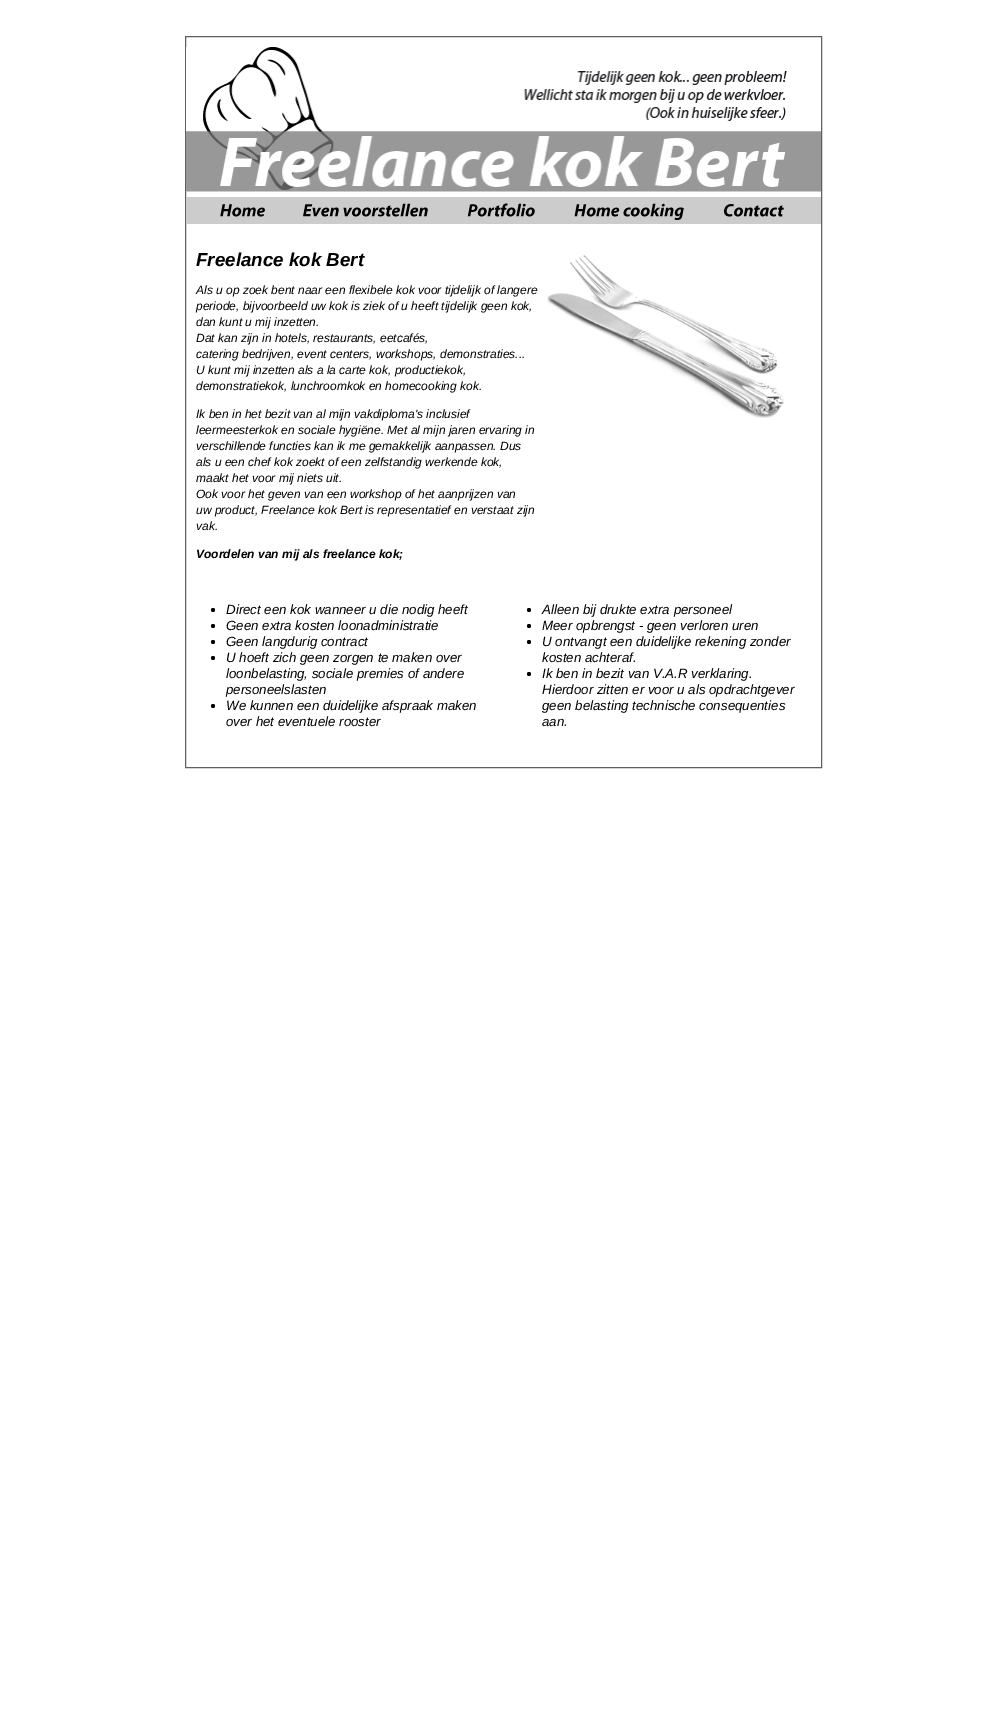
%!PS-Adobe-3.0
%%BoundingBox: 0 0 1006 1726
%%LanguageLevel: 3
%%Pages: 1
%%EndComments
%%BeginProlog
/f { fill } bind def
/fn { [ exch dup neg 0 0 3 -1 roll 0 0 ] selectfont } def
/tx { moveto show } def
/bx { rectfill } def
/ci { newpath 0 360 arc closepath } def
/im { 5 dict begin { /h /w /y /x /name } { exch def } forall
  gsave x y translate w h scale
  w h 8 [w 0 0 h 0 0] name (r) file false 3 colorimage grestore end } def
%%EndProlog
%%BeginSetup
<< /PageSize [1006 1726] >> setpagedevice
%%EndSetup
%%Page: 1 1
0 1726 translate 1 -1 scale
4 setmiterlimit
1 setgray
0 0 1006 1726 bx
0.376 setgray
185.5 36.5 636 731 rectstroke
(image0.raw) 186 47 635 145 im
0.8 setgray
186 197 635 27 bx
(image1.raw) 220 204 45 13 im
(image2.raw) 303 203 125 14 im
(image3.raw) 467 203 68 14 im
(image4.raw) 574 203 110 17 im
(image5.raw) 724 204 60 13 im
/LiberationSans-BoldItalic 18.75 fn
0 setgray
(Freelance kok Bert) 196 266 tx
/LiberationSans-Italic 12 fn
(Als u op zoek bent naar een flexibele kok voor tijdelijk of langere) 196 294 tx
(periode, bijvoorbeeld uw kok is ziek of u heeft tijdelijk geen kok,) 196 310 tx
(dan kunt u mij inzetten.) 196 326 tx
(Dat kan zijn in hotels, restaurants, eetcafés,) 196 342 tx
(catering bedrijven, event centers, workshops, demonstraties...) 196 358 tx
(U kunt mij inzetten als a la carte kok, productiekok,) 196 374 tx
(demonstratiekok, lunchroomkok en homecooking kok.) 196 390 tx
(Ik ben in het bezit van al mijn vakdiploma's inclusief) 196 418 tx
(leermeesterkok en sociale hygiëne. Met al mijn jaren ervaring in) 196 434 tx
(verschillende functies kan ik me gemakkelijk aanpassen. Dus) 196 450 tx
(als u een chef kok zoekt of een zelfstandig werkende kok,) 196 466 tx
(maakt het voor mij niets uit.) 196 482 tx
(Ook voor het geven van een workshop of het aanprijzen van) 196 498 tx
(uw product, Freelance kok Bert is representatief en verstaat zijn) 196 514 tx
(vak.) 196 530 tx
/LiberationSans-BoldItalic 12 fn
(Voordelen van mij als freelance kok;) 196 558 tx
(image6.raw) 547 255 237 163 im
213 610 2 ci f
/LiberationSans-Italic 13.3 fn
(Direct een kok wanneer u die nodig heeft) 226 614 tx
213 626 2 ci f
(Geen extra kosten loonadministratie) 226 630 tx
213 642 2 ci f
(Geen langdurig contract) 226 646 tx
213 658 2 ci f
(U hoeft zich geen zorgen te maken over) 226 662 tx
(loonbelasting, sociale premies of andere) 226 678 tx
(personeelslasten) 226 694 tx
213 706 2 ci f
(We kunnen een duidelijke afspraak maken) 226 710 tx
(over het eventuele rooster) 226 726 tx
529 610 2 ci f
(Alleen bij drukte extra personeel) 542 614 tx
529 626 2 ci f
(Meer opbrengst - geen verloren uren) 542 630 tx
529 642 2 ci f
(U ontvangt een duidelijke rekening zonder) 542 646 tx
(kosten achteraf.) 542 662 tx
529 674 2 ci f
(Ik ben in bezit van V.A.R verklaring.) 542 678 tx
(Hierdoor zitten er voor u als opdrachtgever) 542 694 tx
(geen belasting technische consequenties) 542 710 tx
(aan.) 542 726 tx
showpage
%%EOF
